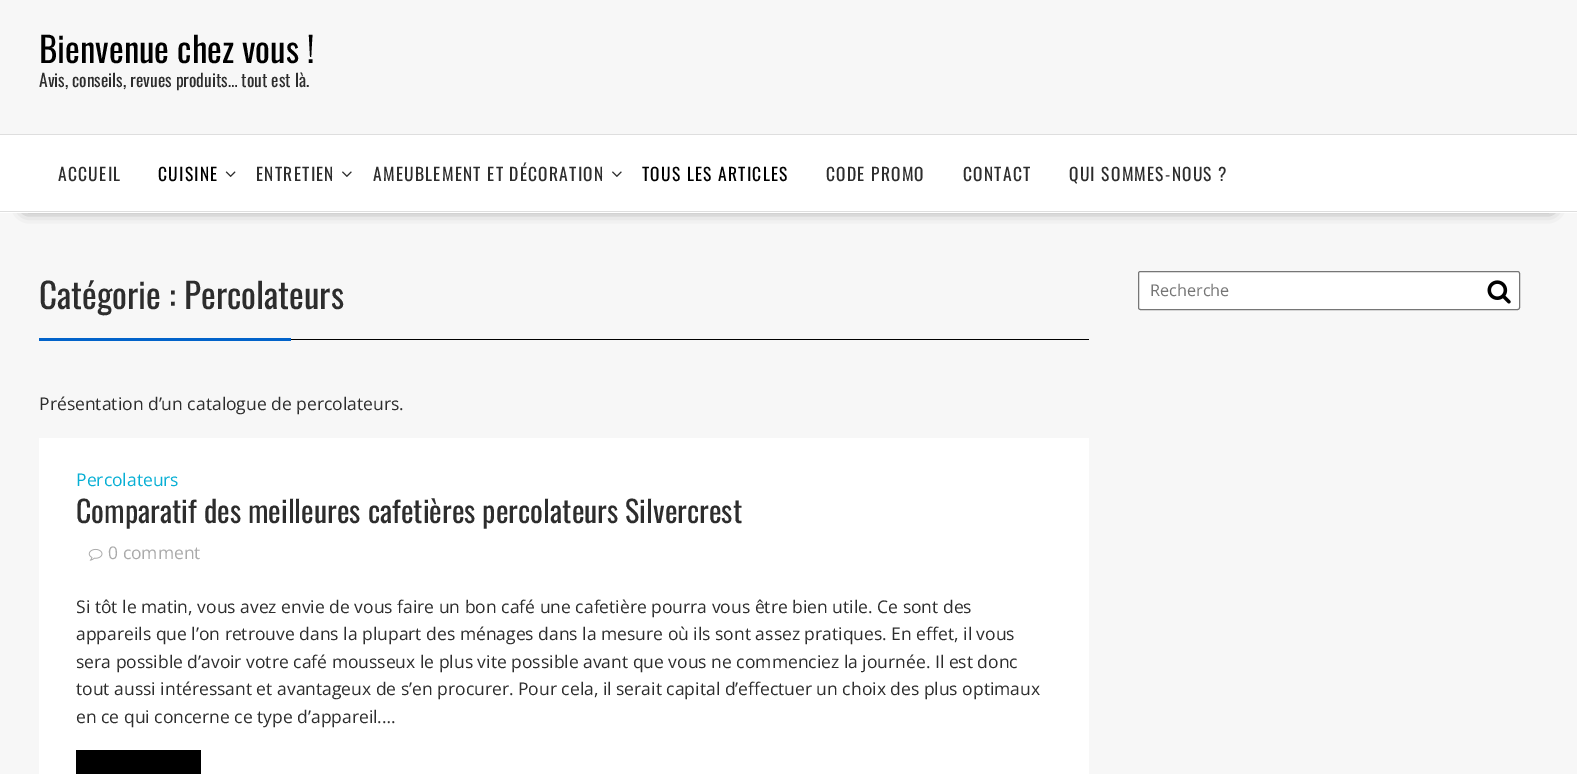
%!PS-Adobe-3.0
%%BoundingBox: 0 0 1577 774
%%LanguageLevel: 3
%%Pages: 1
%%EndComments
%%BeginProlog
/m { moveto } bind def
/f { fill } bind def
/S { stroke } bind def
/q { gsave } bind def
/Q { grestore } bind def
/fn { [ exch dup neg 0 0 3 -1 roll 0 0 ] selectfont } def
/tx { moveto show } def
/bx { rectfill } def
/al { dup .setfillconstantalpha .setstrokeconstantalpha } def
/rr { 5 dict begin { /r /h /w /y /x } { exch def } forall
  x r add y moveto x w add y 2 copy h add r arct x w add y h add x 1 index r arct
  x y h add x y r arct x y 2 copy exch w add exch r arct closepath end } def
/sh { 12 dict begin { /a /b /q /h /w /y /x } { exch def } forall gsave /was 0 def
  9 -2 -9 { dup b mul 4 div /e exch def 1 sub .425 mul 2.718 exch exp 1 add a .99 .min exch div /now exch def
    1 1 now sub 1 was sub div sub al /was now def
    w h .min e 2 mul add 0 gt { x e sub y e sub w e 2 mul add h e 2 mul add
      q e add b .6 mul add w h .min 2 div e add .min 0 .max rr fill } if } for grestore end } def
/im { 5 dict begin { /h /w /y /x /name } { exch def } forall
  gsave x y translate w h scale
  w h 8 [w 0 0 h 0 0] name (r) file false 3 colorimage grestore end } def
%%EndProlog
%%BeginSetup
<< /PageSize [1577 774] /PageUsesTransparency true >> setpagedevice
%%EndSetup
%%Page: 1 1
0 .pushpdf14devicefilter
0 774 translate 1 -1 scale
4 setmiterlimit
0.969 setgray
0 0 1577 774 bx
/Oswald-Regular 35 fn
0 setgray
(Bienvenue chez vous !) 39 63 tx
/Oswald-Regular 17.5 fn
0.176 setgray
(Avis, conseils, revues produits… tout est là.) 39 87 tx
0 setgray
26 181 1525 27 0 7 0.75 sh
1 setgray
0 135 1577 78 bx
0.871 setgray
0 134 1577 1 bx
0 211 1577 1 bx
0.176 setgray
58 181 m 1.25 0 (ACCUEIL) ashow
0 setgray
158 181 m 1.25 0 (CUISINE) ashow
(image0.raw) 225 171 11 6 im
0.176 setgray
256 181 m 1.25 0 (ENTRETIEN) ashow
(image1.raw) 342 171 10 6 im
373 181 m 1.25 0 (AMEUBLEMENT ET DÉCORATION) ashow
(image1.raw) 612 171 10 6 im
0 setgray
642 181 m 1.25 0 (TOUS LES ARTICLES) ashow
0.176 setgray
826 181 m 1.25 0 (CODE PROMO) ashow
963 181 m 1.25 0 (CONTACT) ashow
1069 181 m 1.25 0 (QUI SOMMES-NOUS ?) ashow
0 setgray
291 339 798 1 bx
/Oswald-Regular 35 fn
0.176 setgray
(Catégorie : Percolateurs) 39 309 tx
0.008 0.388 0.792 setrgbcolor
39 338 252 3 bx
/OpenSans-Regular 17.5 fn
0.176 setgray
(Présentation d’un catalogue de percolateurs.) 39 410 tx
1 setgray
39 438 1050 336 bx
0.027 0.686 0.831 setrgbcolor
(Percolateurs) 76 486 tx
/Oswald-Regular 30 fn
0.176 setgray
(Comparatif des meilleures cafetières percolateurs Silvercrest) 76 523 tx
(image2.raw) 88 548 15 13 im
/OpenSans-Regular 17.5 fn
0.667 setgray
(0 comment) 108 559 tx
0.176 setgray
(Si tôt le matin, vous avez envie de vous faire un bon café une cafetière pourra vous être bien utile. Ce sont des) 76 613 tx
(appareils que l’on retrouve dans la plupart des ménages dans la mesure où ils sont assez pratiques. En effet, il vous) 76 640 tx
(sera possible d’avoir votre café mousseux le plus vite possible avant que vous ne commenciez la journée. Il est donc) 76 668 tx
(tout aussi intéressant et avantageux de s’en procurer. Pour cela, il serait capital d’effectuer un choix des plus optimaux) 76 695 tx
(en ce qui concerne ce type d’appareil.…) 76 723 tx
0 setgray
76 750 125 24 bx
1 setgray
1138.5 271.5 381 38 2 rr q f Q
0.463 setgray
S
/OpenSans-Regular 16.25 fn
0.459 setgray
(Recherche) 1150 296 tx
(image3.raw) 1487 280 24 24 im
.poppdf14devicefilter showpage
%%EOF
